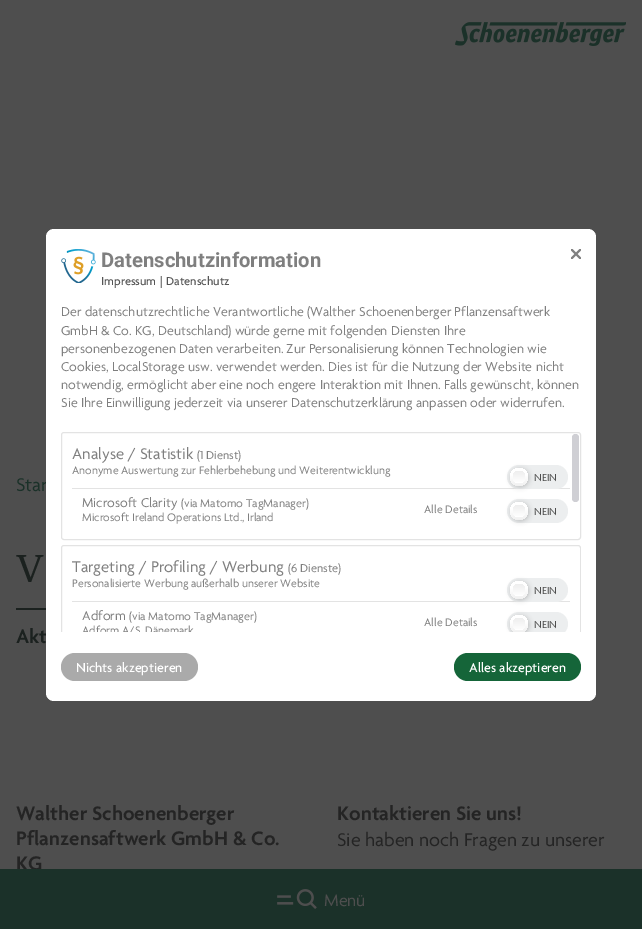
%!PS-Adobe-3.0
%%BoundingBox: 0 0 642 929
%%LanguageLevel: 3
%%Pages: 1
%%EndComments
%%BeginProlog
/m { moveto } bind def
/l { lineto } bind def
/f { fill } bind def
/S { stroke } bind def
/q { gsave } bind def
/Q { grestore } bind def
/w { setlinewidth } bind def
/fn { [ exch dup neg 0 0 3 -1 roll 0 0 ] selectfont } def
/tx { moveto show } def
/bx { rectfill } def
/al { dup .setfillconstantalpha .setstrokeconstantalpha } def
/ci { newpath 0 360 arc closepath } def
/rr { 5 dict begin { /r /h /w /y /x } { exch def } forall
  x r add y moveto x w add y 2 copy h add r arct x w add y h add x 1 index r arct
  x y h add x y r arct x y 2 copy exch w add exch r arct closepath end } def
/sh { 12 dict begin { /a /b /q /h /w /y /x } { exch def } forall gsave /was 0 def
  9 -2 -9 { dup b mul 4 div /e exch def 1 sub .425 mul 2.718 exch exp 1 add a .99 .min exch div /now exch def
    1 1 now sub 1 was sub div sub al /was now def
    w h .min e 2 mul add 0 gt { x e sub y e sub w e 2 mul add h e 2 mul add
      q e add b .6 mul add w h .min 2 div e add .min 0 .max rr fill } if } for grestore end } def
/im { 5 dict begin { /h /w /y /x /name } { exch def } forall
  gsave x y translate w h scale
  w h 8 [w 0 0 h 0 0] name (r) file false 3 colorimage grestore end } def
%%EndProlog
%%BeginSetup
<< /PageSize [642 929] /PageUsesTransparency true >> setpagedevice
%%EndSetup
%%Page: 1 1
0 .pushpdf14devicefilter
0 929 translate 1 -1 scale
4 setmiterlimit
0.306 setgray
0 0 642 929 bx
/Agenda-Regular 20 fn
0.106 0.192 0.161 setrgbcolor
(Star) 16 491 tx
/Agenda-SemiBold 21.2 fn
0.106 0.129 0.122 setrgbcolor
(Akt) 16 643 tx
1 setgray
46 229 550 472 8 rr f
(image0.raw) 61 249 35 34 im
/Roboto-Bold 20.25 fn
0.498 setgray
(Datenschutzinformation) 101 267 tx
q
571 249 10 10 rectclip
0.502 setgray
2 w
571 249 m 581 259 l 571 259 m 581 249 l S
Q
/Agenda-Medium 12.5 fn
0.333 setgray
(Impressum) 101 285 tx
(|) 160 285 tx
(Datenschutz) 166 285 tx
/Agenda-Regular 14 fn
0.498 setgray
(Der datenschutzrechtliche Verantwortliche \(Walther Schoenenberger Pflanzensaftwerk) 61 316 tx
(GmbH & Co. KG, Deutschland\) würde gerne mit folgenden Diensten Ihre) 61 335 tx
(personenbezogenen Daten verarbeiten. Zur Personalisierung können Technologien wie) 61 353 tx
(Cookies, LocalStorage usw. verwendet werden. Dies ist für die Nutzung der Website nicht) 61 371 tx
(notwendig, ermöglicht aber eine noch engere Interaktion mit Ihnen. Falls gewünscht, können) 61 389 tx
(Sie Ihre Einwilligung jederzeit via unserer Datenschutzerklärung anpassen oder widerrufen.) 61 407 tx
0.89 setgray
61.5 432.5 519 107 2.5 rr S
/Agenda-Regular 16.75 fn
0.498 setgray
(Analyse / Statistik) 72 459 tx
/Agenda-Regular 12.5 fn
(\(1 Dienst\)) 197 459 tx
/Agenda-Regular 11.9 fn
(Anonyme Auswertung zur Fehlerbehebung und Weiterentwicklung) 72 474 tx
0.89 setgray
72 488 498 1 bx
0.925 0.933 0.937 setrgbcolor
507 465 61 24 12 rr f
0 setgray
511 469 18 18 9 2.5 0.2 sh
q 519 477 9 ci clip newpath
<< /ShadingType 2 /ColorSpace /DeviceRGB /Coords [519 468 519 486] /Extend [true true] /Function << /FunctionType 3 /Domain [0 1] /Functions [<< /FunctionType 2 /Domain [0 1] /C0 [1 1 1] /C1 [1 1 1] /N 1 >> << /FunctionType 2 /Domain [0 1] /C0 [1 1 1] /C1 [0.941 0.941 0.941] /N 1 >>] /Bounds [0.4] /Encode [0 1 0 1] >> >> shfill Q
q 519 477 6 ci clip newpath
<< /ShadingType 2 /ColorSpace /DeviceRGB /Coords [519 471 519 483] /Extend [true true] /Function << /FunctionType 2 /Domain [0 1] /C0 [0.933 0.933 0.933] /C1 [1 1 1] /N 1 >> >> shfill Q
/Agenda-Regular 11 fn
0.306 setgray
(NEIN) 534 481 tx
/Agenda-Regular 14 fn
0.498 setgray
(Microsoft Clarity) 82 507 tx
/Agenda-Regular 12.25 fn
(\(via Matomo TagManager\)) 181 507 tx
/Agenda-Regular 11.9 fn
(Microsoft Ireland Operations Ltd., Irland) 82 521 tx
(Alle Details) 424 513 tx
0.925 0.933 0.937 setrgbcolor
507 499 61 24 12 rr f
0 setgray
511 503 18 18 9 2.5 0.2 sh
q 519 511 9 ci clip newpath
<< /ShadingType 2 /ColorSpace /DeviceRGB /Coords [519 502 519 520] /Extend [true true] /Function << /FunctionType 3 /Domain [0 1] /Functions [<< /FunctionType 2 /Domain [0 1] /C0 [1 1 1] /C1 [1 1 1] /N 1 >> << /FunctionType 2 /Domain [0 1] /C0 [1 1 1] /C1 [0.941 0.941 0.941] /N 1 >>] /Bounds [0.4] /Encode [0 1 0 1] >> >> shfill Q
q 519 511 6 ci clip newpath
<< /ShadingType 2 /ColorSpace /DeviceRGB /Coords [519 505 519 517] /Extend [true true] /Function << /FunctionType 2 /Domain [0 1] /C0 [0.933 0.933 0.933] /C1 [1 1 1] /N 1 >> >> shfill Q
/Agenda-Regular 11 fn
0.306 setgray
(NEIN) 534 515 tx
/Agenda-SemiBold 21.2 fn
0.141 setgray
(Walther Schoenenberger) 16 820 tx
(Pflanzensaftwerk GmbH & Co.) 16 845 tx
/Agenda-Regular 20 fn
(Sie haben noch Fragen zu unserer) 337 846 tx
q
61 432 520 200 rectclip
0.89 setgray
61.5 545.5 519 296 2.5 rr S
Q
/Agenda-Regular 16.75 fn
0.498 setgray
(Targeting / Profiling / Werbung) 72 572 tx
/Agenda-Regular 12.5 fn
(\(6 Dienste\)) 288 572 tx
/Agenda-Regular 11.9 fn
(Personalisierte Werbung außerhalb unserer Website) 72 587 tx
0.89 setgray
72 601 498 1 bx
0.925 0.933 0.937 setrgbcolor
507 578 61 24 12 rr f
0 setgray
511 582 18 18 9 2.5 0.2 sh
q 519 590 9 ci clip newpath
<< /ShadingType 2 /ColorSpace /DeviceRGB /Coords [519 581 519 599] /Extend [true true] /Function << /FunctionType 3 /Domain [0 1] /Functions [<< /FunctionType 2 /Domain [0 1] /C0 [1 1 1] /C1 [1 1 1] /N 1 >> << /FunctionType 2 /Domain [0 1] /C0 [1 1 1] /C1 [0.941 0.941 0.941] /N 1 >>] /Bounds [0.4] /Encode [0 1 0 1] >> >> shfill Q
q 519 590 6 ci clip newpath
<< /ShadingType 2 /ColorSpace /DeviceRGB /Coords [519 584 519 596] /Extend [true true] /Function << /FunctionType 2 /Domain [0 1] /C0 [0.933 0.933 0.933] /C1 [1 1 1] /N 1 >> >> shfill Q
/Agenda-Regular 11 fn
0.306 setgray
(NEIN) 534 594 tx
/Agenda-Regular 14 fn
0.498 setgray
(Adform) 82 620 tx
/Agenda-Regular 12.25 fn
(\(via Matomo TagManager\)) 129 620 tx
q
61 432 520 200 rectclip
/Agenda-Regular 11.9 fn
(Adform A/S, Dänemark) 82 634 tx
Q
/Agenda-Regular 11.9 fn
(Alle Details) 424 626 tx
q
61 432 520 200 rectclip
0.925 0.933 0.937 setrgbcolor
507 612 61 24 12 rr f
Q
q
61 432 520 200 rectclip
0 setgray
511 616 18 18 9 2.5 0.2 sh
Q
q
61 432 520 200 rectclip
q 519 624 9 ci clip newpath
<< /ShadingType 2 /ColorSpace /DeviceRGB /Coords [519 615 519 633] /Extend [true true] /Function << /FunctionType 3 /Domain [0 1] /Functions [<< /FunctionType 2 /Domain [0 1] /C0 [1 1 1] /C1 [1 1 1] /N 1 >> << /FunctionType 2 /Domain [0 1] /C0 [1 1 1] /C1 [0.941 0.941 0.941] /N 1 >>] /Bounds [0.4] /Encode [0 1 0 1] >> >> shfill Q
Q
q 519 624 6 ci clip newpath
<< /ShadingType 2 /ColorSpace /DeviceRGB /Coords [519 618 519 630] /Extend [true true] /Function << /FunctionType 2 /Domain [0 1] /C0 [0.933 0.933 0.933] /C1 [1 1 1] /N 1 >> >> shfill Q
/Agenda-Regular 11 fn
0.306 setgray
(NEIN) 534 628 tx
0.812 0.812 0.831 setrgbcolor
572 434 7 68 3.5 rr f
0.667 setgray
61 653 137 28 14 rr f
/Agenda-Medium 14 fn
1 setgray
(Nichts akzeptieren) 76 672 tx
0.082 0.396 0.224 setrgbcolor
454 653 127 28 14 rr f
1 setgray
(Alles akzeptieren) 469 672 tx
(image1.raw) 455 22 171 24 im
/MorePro-Regular 37 fn
0.106 0.129 0.122 setrgbcolor
(V) 16 582 tx
16 608 30 2 bx
/Agenda-SemiBold 21.2 fn
0.141 setgray
(KG) 16 870 tx
(Kontaktieren Sie uns!) 337 820 tx
0.106 0.192 0.161 setrgbcolor
0 869 642 60 bx
(image2.raw) 277 889 40 20 im
/Agenda-Regular 18 fn
0.306 setgray
(Menü) 324 906 tx
.poppdf14devicefilter showpage
%%EOF
